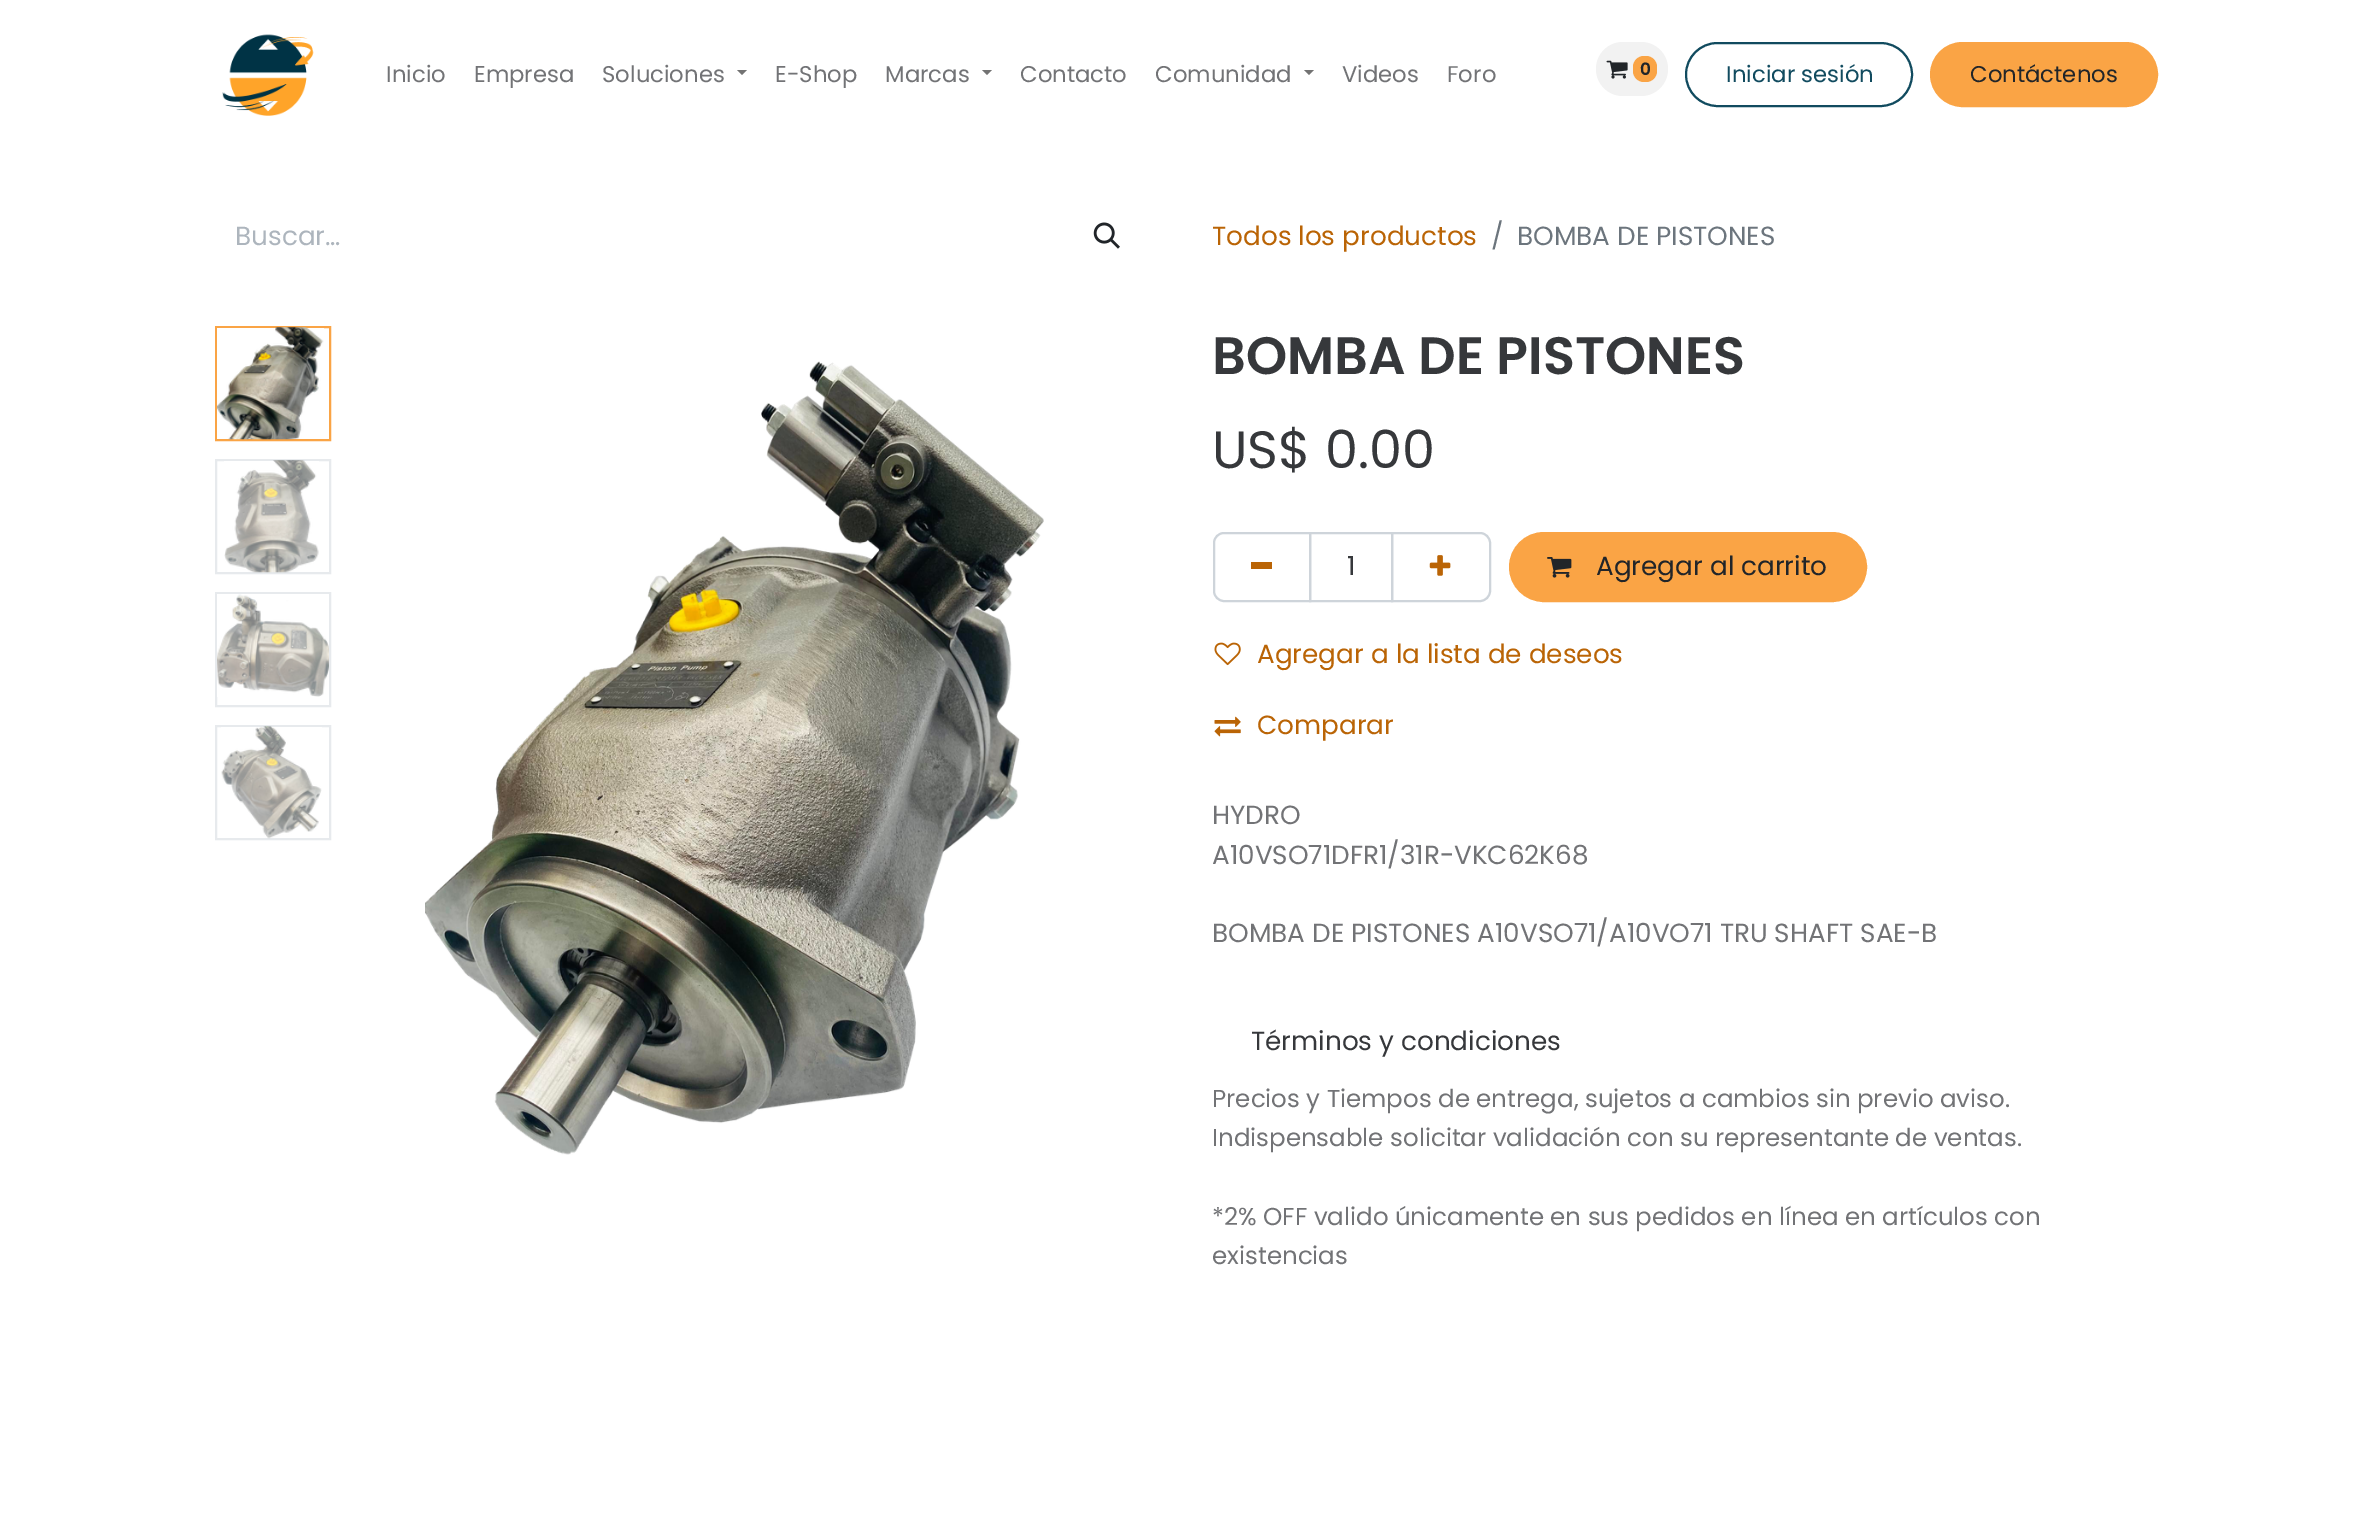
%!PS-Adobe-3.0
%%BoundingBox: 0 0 2371 1531
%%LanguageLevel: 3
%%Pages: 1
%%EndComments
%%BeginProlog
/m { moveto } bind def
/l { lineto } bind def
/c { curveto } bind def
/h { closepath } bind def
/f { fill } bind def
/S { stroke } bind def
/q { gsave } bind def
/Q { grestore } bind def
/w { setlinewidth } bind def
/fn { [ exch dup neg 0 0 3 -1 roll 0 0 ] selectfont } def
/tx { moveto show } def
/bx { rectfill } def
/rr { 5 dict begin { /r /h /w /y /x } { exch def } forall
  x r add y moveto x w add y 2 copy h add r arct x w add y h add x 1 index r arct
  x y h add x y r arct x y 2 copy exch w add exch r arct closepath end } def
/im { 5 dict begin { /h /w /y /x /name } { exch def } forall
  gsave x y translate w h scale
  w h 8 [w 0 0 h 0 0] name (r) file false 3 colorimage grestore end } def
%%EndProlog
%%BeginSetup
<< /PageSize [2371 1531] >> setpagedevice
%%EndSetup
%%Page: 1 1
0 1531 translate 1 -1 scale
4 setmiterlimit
1 setgray
0 0 2371 1531 bx
(image0.raw) 222 34 92 82 im
/Poppins-Regular 22.75 fn
0.447 0.451 0.463 setrgbcolor
(Inicio) 386 82 tx
(Empresa) 474 82 tx
(Soluciones) 602 82 tx
0.451 setgray
737 70 m 747 70 l 742 75 l h f
0.447 0.451 0.463 setrgbcolor
(E-Shop) 775 82 tx
(Marcas) 885 82 tx
0.451 setgray
982 70 m 992 70 l 987 75 l h f
0.447 0.451 0.463 setrgbcolor
(Contacto) 1020 82 tx
(Comunidad) 1155 82 tx
0.451 setgray
1304 70 m 1314 70 l 1309 75 l h f
0.447 0.451 0.463 setrgbcolor
(Videos) 1342 82 tx
(Foro) 1447 82 tx
0.949 setgray
1596 42 72 54 27 rr f
(image1.raw) 1606 60 22 19 im
0.98 0.643 0.271 setrgbcolor
1633 56 24 26 11 rr f
/Poppins-SemiBold 17 fn
0.129 0.145 0.161 setrgbcolor
(0) 1640 75 tx
0.067 0.294 0.373 setrgbcolor
2 w
1686 43 226 63 31.5 rr S
/Poppins-Regular 22.75 fn
(Iniciar sesión) 1726 82 tx
0.98 0.643 0.271 setrgbcolor
1931 43 226 63 31.5 rr q f Q
S
0.129 0.145 0.161 setrgbcolor
(Contáctenos) 1970 82 tx
/Poppins-Regular 26.25 fn
0.678 0.71 0.741 setrgbcolor
(Buscar…) 235 245 tx
(image2.raw) 1093 222 27 27 im
0.729 0.392 0.02 setrgbcolor
(Todos los productos) 1212 245 tx
0.424 0.459 0.49 setrgbcolor
(/) 1491 245 tx
(BOMBA DE PISTONES) 1517 245 tx
0.98 0.643 0.271 setrgbcolor
216 327 114 113 rectstroke
(image3.raw) 217 327 107 113 im
0.906 0.918 0.929 setrgbcolor
216 460 114 113 rectstroke
(image4.raw) 224 460 95 113 im
216 593 114 113 rectstroke
(image5.raw) 217 594 112 103 im
216 726 114 113 rectstroke
(image6.raw) 221 726 101 113 im
(image7.raw) 425 361 619 794 im
/Poppins-SemiBold 52.5 fn
0.212 0.22 0.231 setrgbcolor
(BOMBA DE PISTONES) 1212 374 tx
/Poppins-Regular 52.5 fn
(US$ 0.00) 1212 468 tx
0.808 0.831 0.855 setrgbcolor
1310 533 82 68 rectstroke
1224 533 m 1310 533 l 1310 601 l 1224 601 l 1218.5 601 1214 596.5 1214 591 c 1214 543 l 1214 537.5 1218.5 533 1224 533 c h S
0.729 0.392 0.02 setrgbcolor
1251 562 21 7 bx
/Poppins-Regular 26.25 fn
0.212 0.22 0.231 setrgbcolor
(1) 1347 575 tx
0.808 0.831 0.855 setrgbcolor
1392 533 m 1480 533 l 1485.5 533 1490 537.5 1490 543 c 1490 591 l 1490 596.5 1485.5 601 1480 601 c 1392 601 l h S
(image8.raw) 1429 555 22 21 im
0.98 0.643 0.271 setrgbcolor
1510 533 356 68 34 rr q f Q
S
(image9.raw) 1547 557 25 21 im
0.129 0.145 0.161 setrgbcolor
(Agregar al carrito) 1596 575 tx
(image10.raw) 1214 642 27 24 im
0.729 0.392 0.02 setrgbcolor
(Agregar a la lista de deseos) 1257 663 tx
(image11.raw) 1214 716 27 21 im
(Comparar) 1257 734 tx
0.447 0.451 0.463 setrgbcolor
(HYDRO) 1212 824 tx
(A10VSO71DFR1/31R-VKC62K68) 1212 864 tx
(BOMBA DE PISTONES A10VSO71/A10VO71 TRU SHAFT SAE-B) 1212 942 tx
0.212 0.22 0.231 setrgbcolor
(Términos y condiciones) 1251 1050 tx
/Poppins-Regular 24.5 fn
0.447 0.451 0.463 setrgbcolor
(Precios y Tiempos de entrega, sujetos a cambios sin previo aviso.) 1212 1107 tx
(Indispensable solicitar validación con su representante de ventas.) 1212 1146 tx
(*2% OFF valido únicamente en sus pedidos en línea en artículos con) 1212 1225 tx
(existencias) 1212 1264 tx
showpage
%%EOF
